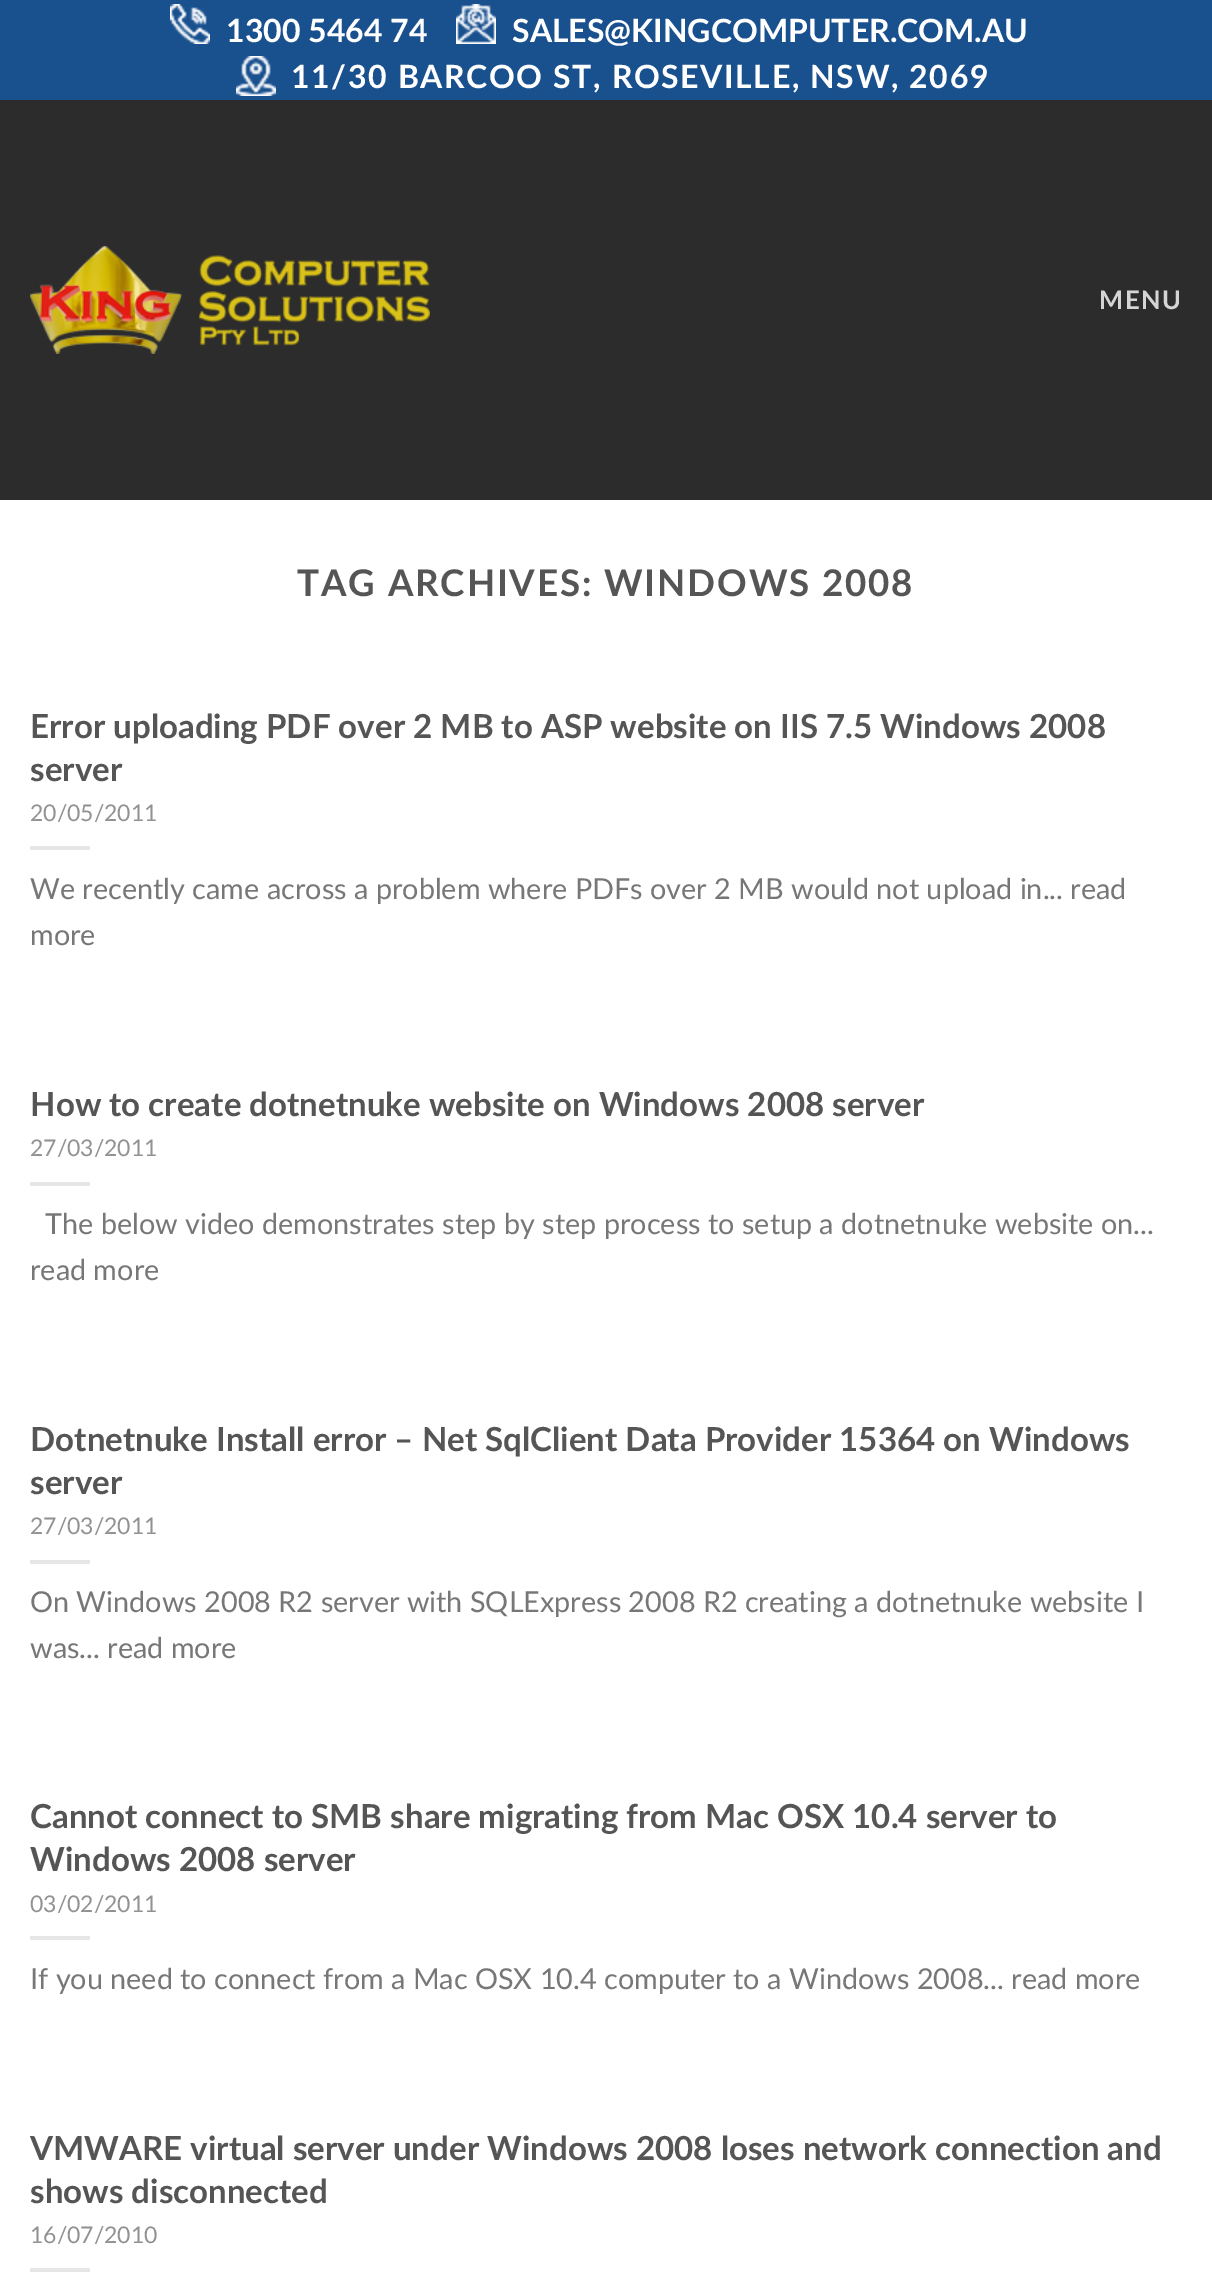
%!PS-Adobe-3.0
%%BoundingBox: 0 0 1212 2296
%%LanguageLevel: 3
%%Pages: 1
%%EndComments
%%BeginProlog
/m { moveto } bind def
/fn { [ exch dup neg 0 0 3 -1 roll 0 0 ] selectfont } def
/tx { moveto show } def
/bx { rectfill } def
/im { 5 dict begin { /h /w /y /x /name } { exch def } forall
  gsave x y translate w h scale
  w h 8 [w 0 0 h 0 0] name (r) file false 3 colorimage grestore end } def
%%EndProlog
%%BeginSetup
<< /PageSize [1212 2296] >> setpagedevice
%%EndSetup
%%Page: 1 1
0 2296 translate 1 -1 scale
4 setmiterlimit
1 setgray
0 0 1212 2296 bx
0.098 0.314 0.557 setrgbcolor
0 0 1212 100 bx
(image0.raw) 170 4 40 40 im
/Lato-Bold 32 fn
1 setgray
(1300 5464 74) 226 42 tx
(image1.raw) 456 4 40 40 im
(SALES@KINGCOMPUTER.COM.AU) 512 42 tx
(image2.raw) 236 56 40 40 im
291 88 m 1.6 0 (11/30 BARCOO ST, ROSEVILLE, NSW, 2069) ashow
0.173 setgray
0 100 1212 400 bx
(image3.raw) 30 246 400 108 im
/Lato-Bold 25.5 fn
0.835 setgray
1099 309 m 1.5 0 (MENU) ashow
/Lato-Bold 36.75 fn
0.333 setgray
297 596 m 1.85 0 (TAG ARCHIVES: WINDOWS 2008) ashow
/Lato-Bold 33.1 fn
(Error uploading PDF over 2 MB to ASP website on IIS 7.5 Windows 2008) 30 738 tx
(server) 30 781 tx
/Lato-Regular 23 fn
0.573 setgray
(20/05/2011) 30 821 tx
0.902 setgray
30 846 60 4 bx
/Lato-Regular 28.8 fn
0.467 setgray
(We recently came across a problem where PDFs over 2 MB would not upload in... read) 30 899 tx
(more) 30 945 tx
/Lato-Bold 33.1 fn
0.333 setgray
(How to create dotnetnuke website on Windows 2008 server) 30 1116 tx
/Lato-Regular 23 fn
0.573 setgray
(27/03/2011) 30 1156 tx
0.902 setgray
30 1182 60 4 bx
/Lato-Regular 28.8 fn
0.467 setgray
(The below video demonstrates step by step process to setup a dotnetnuke website on...) 45 1234 tx
(read more) 30 1280 tx
/Lato-Bold 33.1 fn
0.333 setgray
(Dotnetnuke Install error – Net SqlClient Data Provider 15364 on Windows) 30 1451 tx
(server) 30 1494 tx
/Lato-Regular 23 fn
0.573 setgray
(27/03/2011) 30 1534 tx
0.902 setgray
30 1560 60 4 bx
/Lato-Regular 28.8 fn
0.467 setgray
(On Windows 2008 R2 server with SQLExpress 2008 R2 creating a dotnetnuke website I) 30 1612 tx
(was... read more) 30 1658 tx
/Lato-Bold 33.1 fn
0.333 setgray
(Cannot connect to SMB share migrating from Mac OSX 10.4 server to) 30 1828 tx
(Windows 2008 server) 30 1871 tx
/Lato-Regular 23 fn
0.573 setgray
(03/02/2011) 30 1912 tx
0.902 setgray
30 1936 60 4 bx
/Lato-Regular 28.8 fn
0.467 setgray
(If you need to connect from a Mac OSX 10.4 computer to a Windows 2008... read more) 30 1989 tx
/Lato-Bold 33.1 fn
0.333 setgray
(VMWARE virtual server under Windows 2008 loses network connection and) 30 2160 tx
(shows disconnected) 30 2203 tx
/Lato-Regular 23 fn
0.573 setgray
(16/07/2010) 30 2243 tx
0.902 setgray
30 2268 60 4 bx
showpage
%%EOF
